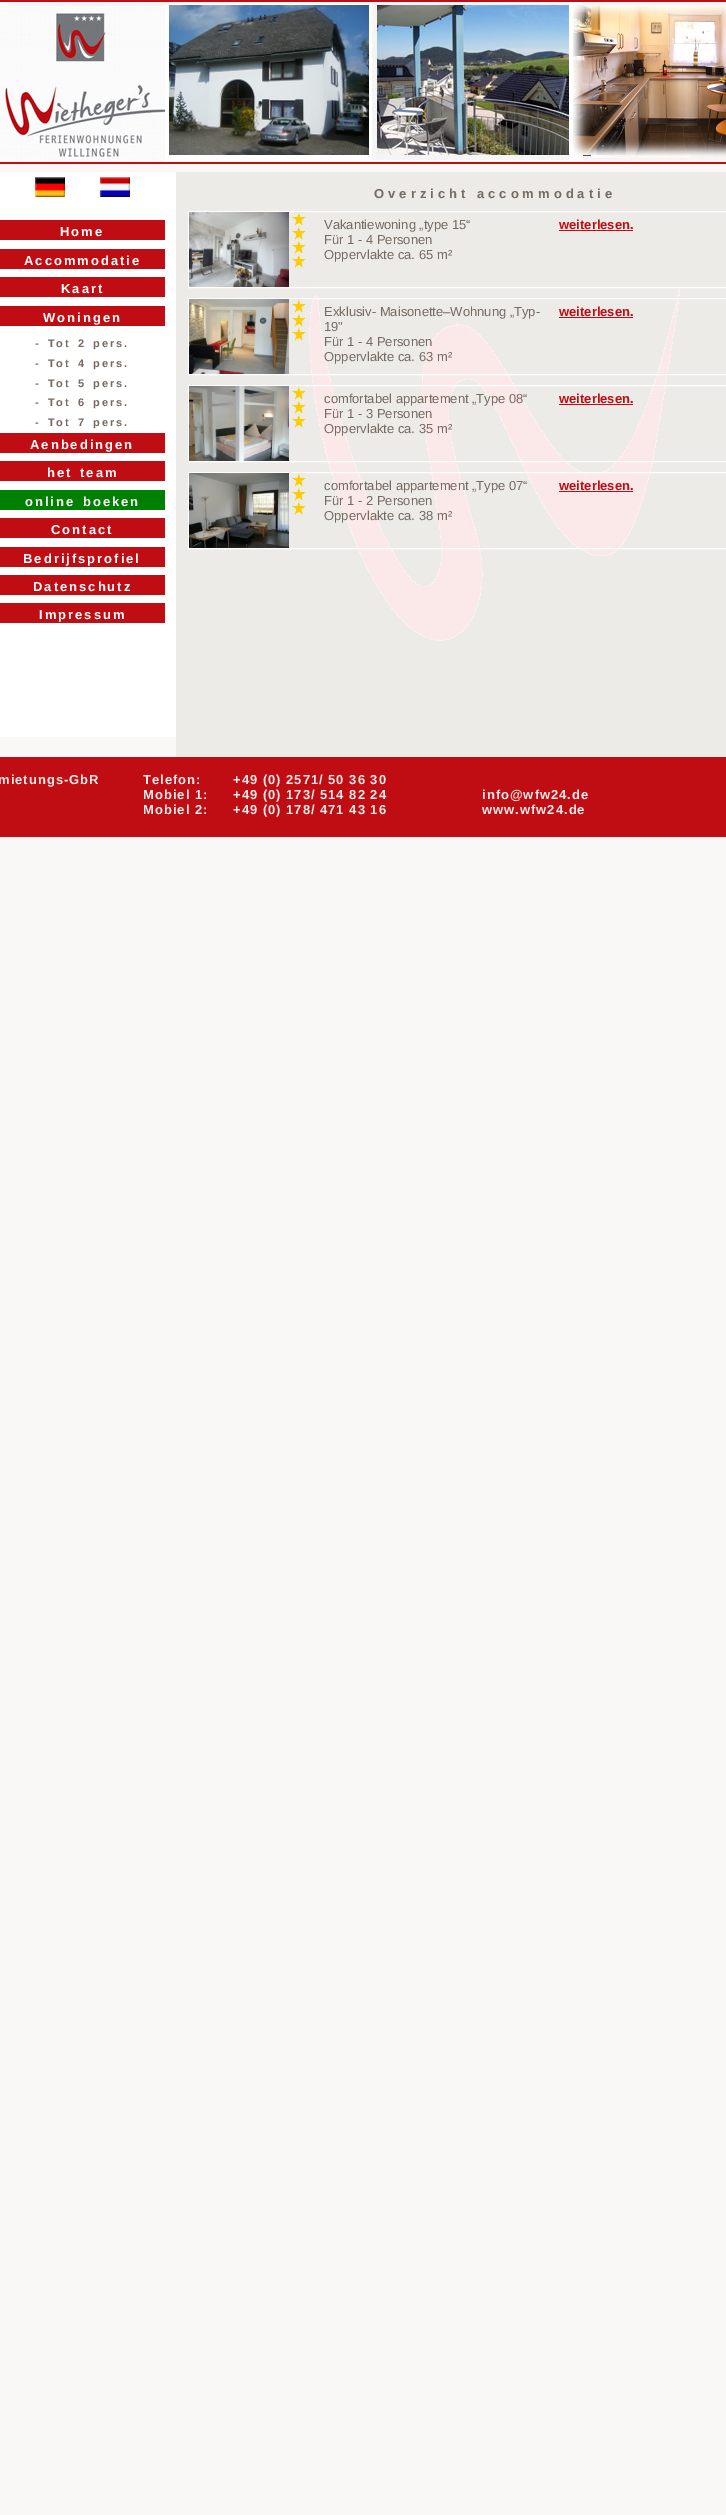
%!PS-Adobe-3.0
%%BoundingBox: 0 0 726 2515
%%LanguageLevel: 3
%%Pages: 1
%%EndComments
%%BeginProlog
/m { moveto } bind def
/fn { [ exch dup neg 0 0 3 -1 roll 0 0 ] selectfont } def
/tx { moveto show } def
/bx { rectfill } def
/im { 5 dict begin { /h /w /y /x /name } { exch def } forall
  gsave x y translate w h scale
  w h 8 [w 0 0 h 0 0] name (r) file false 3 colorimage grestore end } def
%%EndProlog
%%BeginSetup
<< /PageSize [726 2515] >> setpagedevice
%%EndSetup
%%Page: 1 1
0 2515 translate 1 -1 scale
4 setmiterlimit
0.976 0.973 0.969 setrgbcolor
0 0 726 2515 bx
0.753 0.051 0.075 setrgbcolor
0 0 726 164 bx
(image0.raw) 0 2 726 160 im
1 setgray
0 172 176 565 bx
(image1.raw) 35 177 30 20 im
(image2.raw) 100 177 30 20 im
0.753 0.051 0.075 setrgbcolor
0 220 165 20 bx
/LiberationSans-Bold 13 fn
1 setgray
60 236 m 2 0 (Home) ashow
0.753 0.051 0.075 setrgbcolor
0 249 165 20 bx
1 setgray
24 265 m 2 0 (Accommodatie) ashow
0.753 0.051 0.075 setrgbcolor
0 277 165 20 bx
1 setgray
61 293 m 2 0 (Kaart) ashow
0.753 0.051 0.075 setrgbcolor
0 306 165 20 bx
1 setgray
43 322 m 2 0 (Woningen) ashow
/LiberationSans-Bold 11 fn
0.463 0.416 0.388 setrgbcolor
35 347 m 2 0 32 2 0 (- Tot 2 pers.) awidthshow
35 367 m 2 0 32 2 0 (- Tot 4 pers.) awidthshow
35 387 m 2 0 32 2 0 (- Tot 5 pers.) awidthshow
35 406 m 2 0 32 2 0 (- Tot 6 pers.) awidthshow
35 426 m 2 0 32 2 0 (- Tot 7 pers.) awidthshow
0.753 0.051 0.075 setrgbcolor
0 433 165 20 bx
/LiberationSans-Bold 13 fn
1 setgray
30 449 m 2 0 (Aenbedingen) ashow
0.753 0.051 0.075 setrgbcolor
0 461 165 20 bx
1 setgray
47 477 m 2 0 32 2 0 (het team) awidthshow
0 0.502 0 setrgbcolor
0 490 165 20 bx
1 setgray
25 506 m 2 0 32 2 0 (online boeken) awidthshow
0.753 0.051 0.075 setrgbcolor
0 518 165 20 bx
1 setgray
51 534 m 2 0 (Contact) ashow
0.753 0.051 0.075 setrgbcolor
0 547 165 20 bx
1 setgray
23 563 m 2 0 (Bedrijfsprofiel) ashow
0.753 0.051 0.075 setrgbcolor
0 575 165 20 bx
1 setgray
33 591 m 2 0 (Datenschutz) ashow
0.753 0.051 0.075 setrgbcolor
0 603 165 20 bx
1 setgray
39 619 m 2 0 (Impressum) ashow
0.925 0.922 0.91 setrgbcolor
176 172 550 585 bx
(image3.raw) 309 288 371 353 im
0.463 0.416 0.388 setrgbcolor
374 198 m 4 0 (Overzicht accommodatie) ashow
1 setgray
188.5 211.5 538 76 rectstroke
(image4.raw) 189 212 100 75 im
(image5.raw) 292 212 14 14 im
(image5.raw) 292 226 14 14 im
(image5.raw) 292 240 14 14 im
(image5.raw) 292 254 14 14 im
/LiberationSans-Regular 13 fn
0.463 0.416 0.388 setrgbcolor
(Vakantiewoning „type 15“) 324 229 tx
(Für 1 - 4 Personen) 324 244 tx
(Oppervlakte ca. 65 m²) 324 259 tx
/LiberationSans-Bold 13 fn
0.753 0.051 0.075 setrgbcolor
(weiterlesen.) 559 229 tx
559 230 74 1 bx
1 setgray
188.5 298.5 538 76 rectstroke
(image6.raw) 189 299 100 75 im
(image5.raw) 292 299 14 14 im
(image5.raw) 292 313 14 14 im
(image5.raw) 292 327 14 14 im
/LiberationSans-Regular 13 fn
0.463 0.416 0.388 setrgbcolor
(Exklusiv- Maisonette–Wohnung „Typ-) 324 316 tx
(19") 324 331 tx
(Für 1 - 4 Personen) 324 346 tx
(Oppervlakte ca. 63 m²) 324 361 tx
/LiberationSans-Bold 13 fn
0.753 0.051 0.075 setrgbcolor
(weiterlesen.) 559 316 tx
559 317 74 1 bx
1 setgray
188.5 385.5 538 76 rectstroke
(image7.raw) 189 386 100 75 im
(image5.raw) 292 386 14 14 im
(image5.raw) 292 400 14 14 im
(image5.raw) 292 414 14 14 im
/LiberationSans-Regular 13 fn
0.463 0.416 0.388 setrgbcolor
(comfortabel appartement „Type 08“) 324 403 tx
(Für 1 - 3 Personen) 324 418 tx
(Oppervlakte ca. 35 m²) 324 433 tx
/LiberationSans-Bold 13 fn
0.753 0.051 0.075 setrgbcolor
(weiterlesen.) 559 403 tx
559 404 74 1 bx
1 setgray
188.5 472.5 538 76 rectstroke
(image8.raw) 189 473 100 75 im
(image5.raw) 292 473 14 14 im
(image5.raw) 292 487 14 14 im
(image5.raw) 292 501 14 14 im
/LiberationSans-Regular 13 fn
0.463 0.416 0.388 setrgbcolor
(comfortabel appartement „Type 07“) 324 490 tx
(Für 1 - 2 Personen) 324 505 tx
(Oppervlakte ca. 38 m²) 324 520 tx
/LiberationSans-Bold 13 fn
0.753 0.051 0.075 setrgbcolor
(weiterlesen.) 559 490 tx
559 491 74 1 bx
0 757 726 80 bx
0.925 0.922 0.91 setrgbcolor
-2 784 m 1 0 (mietungs-GbR) ashow
143 784 m 1 0 (Telefon:) ashow
143 799 m 1 0 (Mobiel 1:) ashow
143 814 m 1 0 (Mobiel 2:) ashow
233 784 m 1 0 (+49 \(0\) 2571/ 50 36 30) ashow
233 799 m 1 0 (+49 \(0\) 173/ 514 82 24) ashow
233 814 m 1 0 (+49 \(0\) 178/ 471 43 16) ashow
482 799 m 1 0 (info@wfw24.de) ashow
482 814 m 1 0 (www.wfw24.de) ashow
showpage
%%EOF
